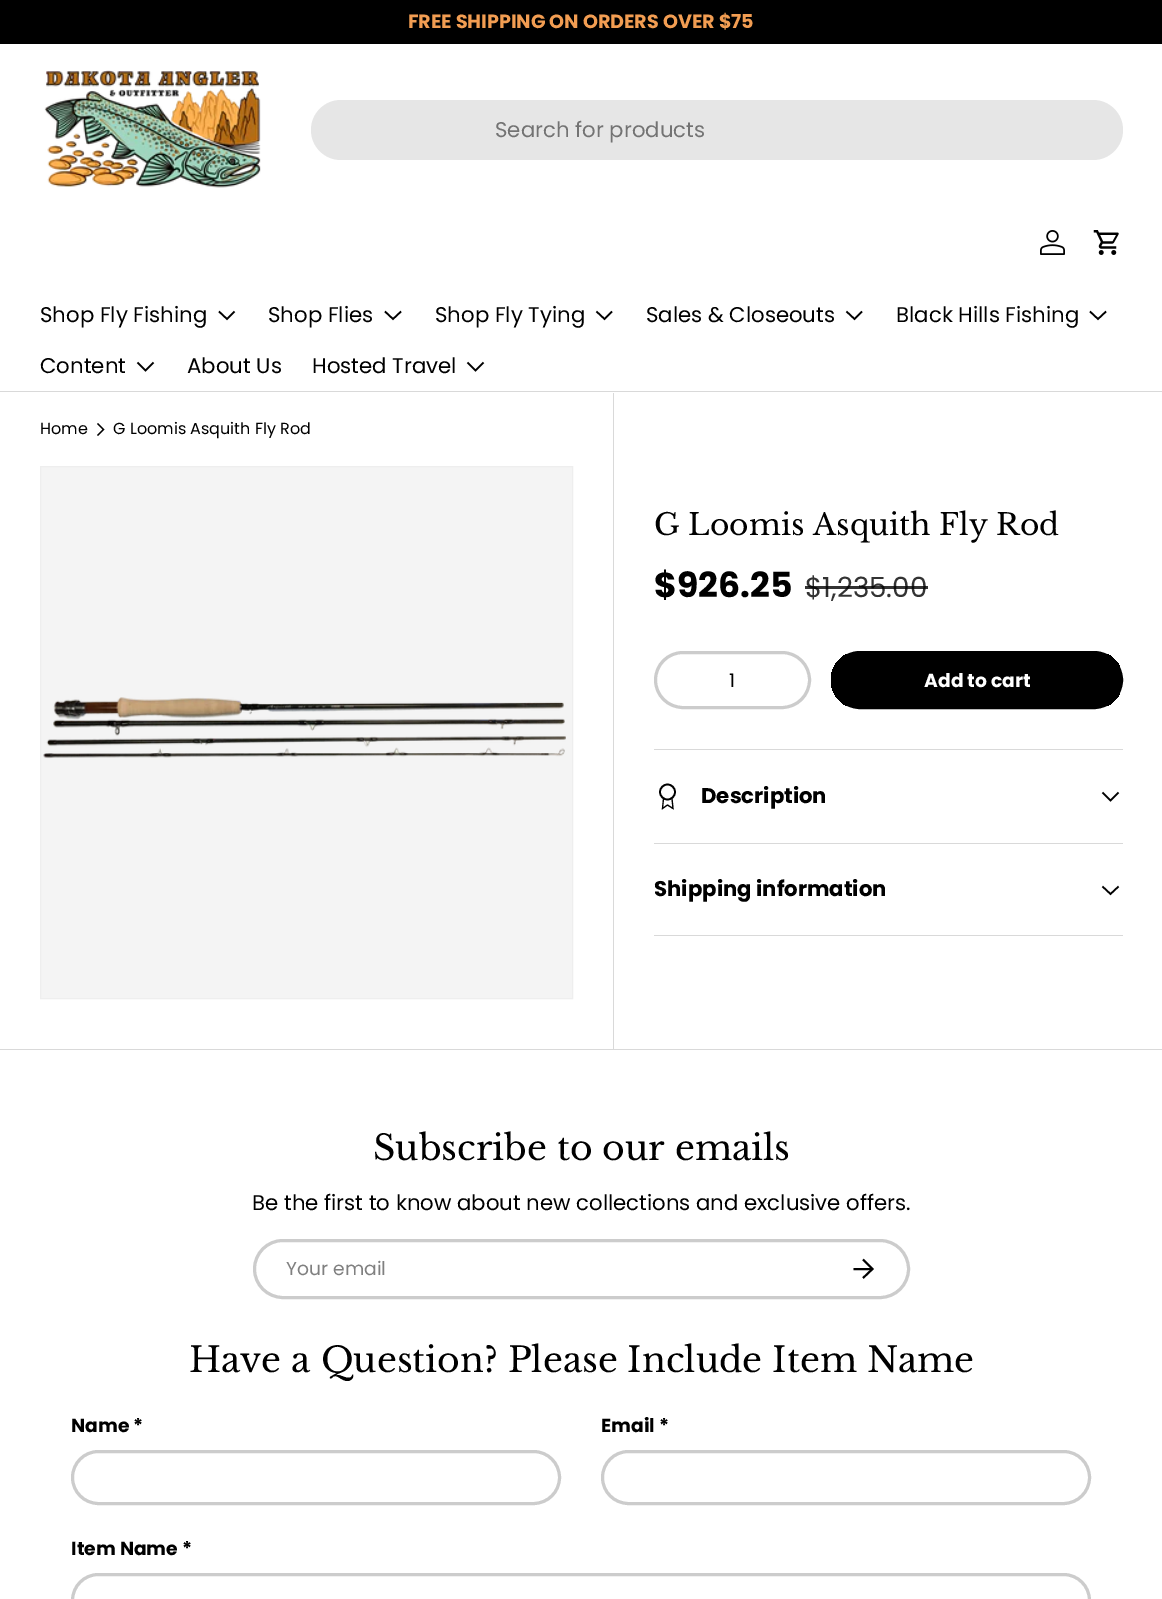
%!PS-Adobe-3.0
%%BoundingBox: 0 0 1162 1599
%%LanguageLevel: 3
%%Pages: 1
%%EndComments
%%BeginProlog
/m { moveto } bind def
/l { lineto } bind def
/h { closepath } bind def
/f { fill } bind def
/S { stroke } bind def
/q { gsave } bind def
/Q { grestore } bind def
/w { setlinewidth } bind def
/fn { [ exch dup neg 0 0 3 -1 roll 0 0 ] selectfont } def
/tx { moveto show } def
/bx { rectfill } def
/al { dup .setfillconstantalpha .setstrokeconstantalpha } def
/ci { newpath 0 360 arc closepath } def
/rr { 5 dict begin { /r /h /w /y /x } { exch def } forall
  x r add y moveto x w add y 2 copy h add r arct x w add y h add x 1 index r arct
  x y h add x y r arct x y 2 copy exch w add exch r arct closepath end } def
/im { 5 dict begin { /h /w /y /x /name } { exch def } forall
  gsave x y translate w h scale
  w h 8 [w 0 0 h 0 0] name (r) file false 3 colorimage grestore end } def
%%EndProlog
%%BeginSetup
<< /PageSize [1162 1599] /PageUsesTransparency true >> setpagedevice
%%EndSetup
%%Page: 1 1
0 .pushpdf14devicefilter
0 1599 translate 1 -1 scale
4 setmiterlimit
1 setgray
0 0 1162 1599 bx
0 setgray
0 0 1162 44 bx
/Poppins-Bold 19.1 fn
0.949 0.616 0.322 setrgbcolor
(FREE SHIPPING ON ORDERS OVER $75) 408 28 tx
0.851 setgray
0 391 1162 1 bx
(image0.raw) 44 70 217 118 im
0.902 setgray
311 100 812 60 30 rr f
/Poppins-Regular 21.25 fn
0.451 setgray
(Search for products) 495 137 tx
(image1.raw) 1040 230 25 25 im
(image2.raw) 1093 230 26 25 im
0 setgray
(Shop Fly Fishing) 40 322 tx
1.6 w
234.5 311.5 m 227 319 l 219 311.5 l S
(Shop Flies) 268 322 tx
401 311.5 m 393 319 l 385 311.5 l S
(Shop Fly Tying) 435 322 tx
612 311.5 m 604.5 319 l 596.5 311.5 l S
(Sales & Closeouts) 646 322 tx
862 311.5 m 854.5 319 l 846.5 311.5 l S
(Black Hills Fishing) 896 322 tx
1106 311.5 m 1098 319 l 1090 311.5 l S
(Content) 40 373 tx
153.5 362.5 m 145.5 370.5 l 137.5 362.5 l S
(About Us) 187 373 tx
(Hosted Travel) 312 373 tx
483.5 362.5 m 475.5 370.5 l 467.5 362.5 l S
/Poppins-Regular 16 fn
(Home) 40 434 tx
1.2 w
97.5 423.5 m 103.5 429.5 l 97.5 435.5 l S
(G Loomis Asquith Fly Rod) 113 434 tx
0.851 setgray
613 393 1 656 bx
0.957 setgray
40.5 466.5 m 572.5 466.5 l 572.5 998.5 l 40.5 998.5 l h q f Q
0.933 setgray
1 w
S
(image3.raw) 43 697 523 62 im
/LibreBaskerville-Regular 29.75 fn
0 setgray
(G Loomis Asquith Fly Rod) 654 535 tx
/Poppins-Bold 34.7 fn
($926.25) 654 597 tx
/Poppins-Regular 27.75 fn
0.2 setgray
($1,235.00) 805 597 tx
0.8 al
0 setgray
805 586 123 3 bx
1 al
0.8 setgray
3 w
655.5 652.5 154 55 27.5 rr S
/Poppins-Regular 18.75 fn
0 setgray
(1) 729 687 tx
q
831 651 292 58 29 rr clip newpath
q 831 654 m 1120 654 l 1120 706 l 831 706 l h clip newpath
<< /ShadingType 2 /ColorSpace /DeviceRGB /Coords [280 578 1101 782] /Extend [true true] /Function << /FunctionType 3 /Domain [0 1] /Functions [<< /FunctionType 2 /Domain [0 1] /C0 [0.18 0.18 0.18] /C1 [0.18 0.18 0.18] /N 1 >> << /FunctionType 2 /Domain [0 1] /C0 [0 0 0] /C1 [0 0 0] /N 1 >>] /Bounds [0.6] /Encode [0 1 0 1] >> >> shfill Q
Q
832.5 652.5 289 55 27.5 rr S
/Poppins-Bold 18.75 fn
1 setgray
(Add to cart) 924 687 tx
0.851 setgray
654 749 469 1 bx
654 843 469 1 bx
0 setgray
1.7 w
667.5 792 7.5 ci S
1.1 w
663.5 798.5 m 662.5 808.5 l 667.5 805 l 673 808.5 l 672 798.5 l S
/Poppins-Bold 21.25 fn
(Description) 701 803 tx
1.6 w
1118.5 792.5 m 1110.5 800.5 l 1102.5 792.5 l S
0.851 setgray
654 935 469 1 bx
0 setgray
(Shipping information) 654 896 tx
1118.5 886.5 m 1110.5 894 l 1102.5 886.5 l S
0.851 setgray
0 1049 1162 1 bx
/LibreBaskerville-Regular 34.7 fn
0 setgray
(Subscribe to our emails) 373 1160 tx
/Poppins-Regular 21.25 fn
(Be the first to know about new collections and exclusive offers.) 252 1210 tx
0.8 setgray
3 w
254.5 1240.5 654 57 28.5 rr S
/Poppins-Regular 18.75 fn
0.502 setgray
(Your email) 286 1275 tx
0 setgray
1.9 w
853.5 1269 m 871.5 1269 l 863 1259.5 m 872.5 1269 l 863 1278 l S
/LibreBaskerville-Regular 34.7 fn
(Have a Question? Please Include Item Name) 189 1372 tx
/Poppins-Bold 18.75 fn
(Name *) 71 1432 tx
0.8 setgray
3 w
72.5 1451.5 487 52 26 rr S
0 setgray
(Email *) 601 1432 tx
0.8 setgray
602.5 1451.5 487 52 26 rr S
0 setgray
(Item Name *) 71 1555 tx
0.8 setgray
72.5 1574.5 1017 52 26 rr S
.poppdf14devicefilter showpage
%%EOF
